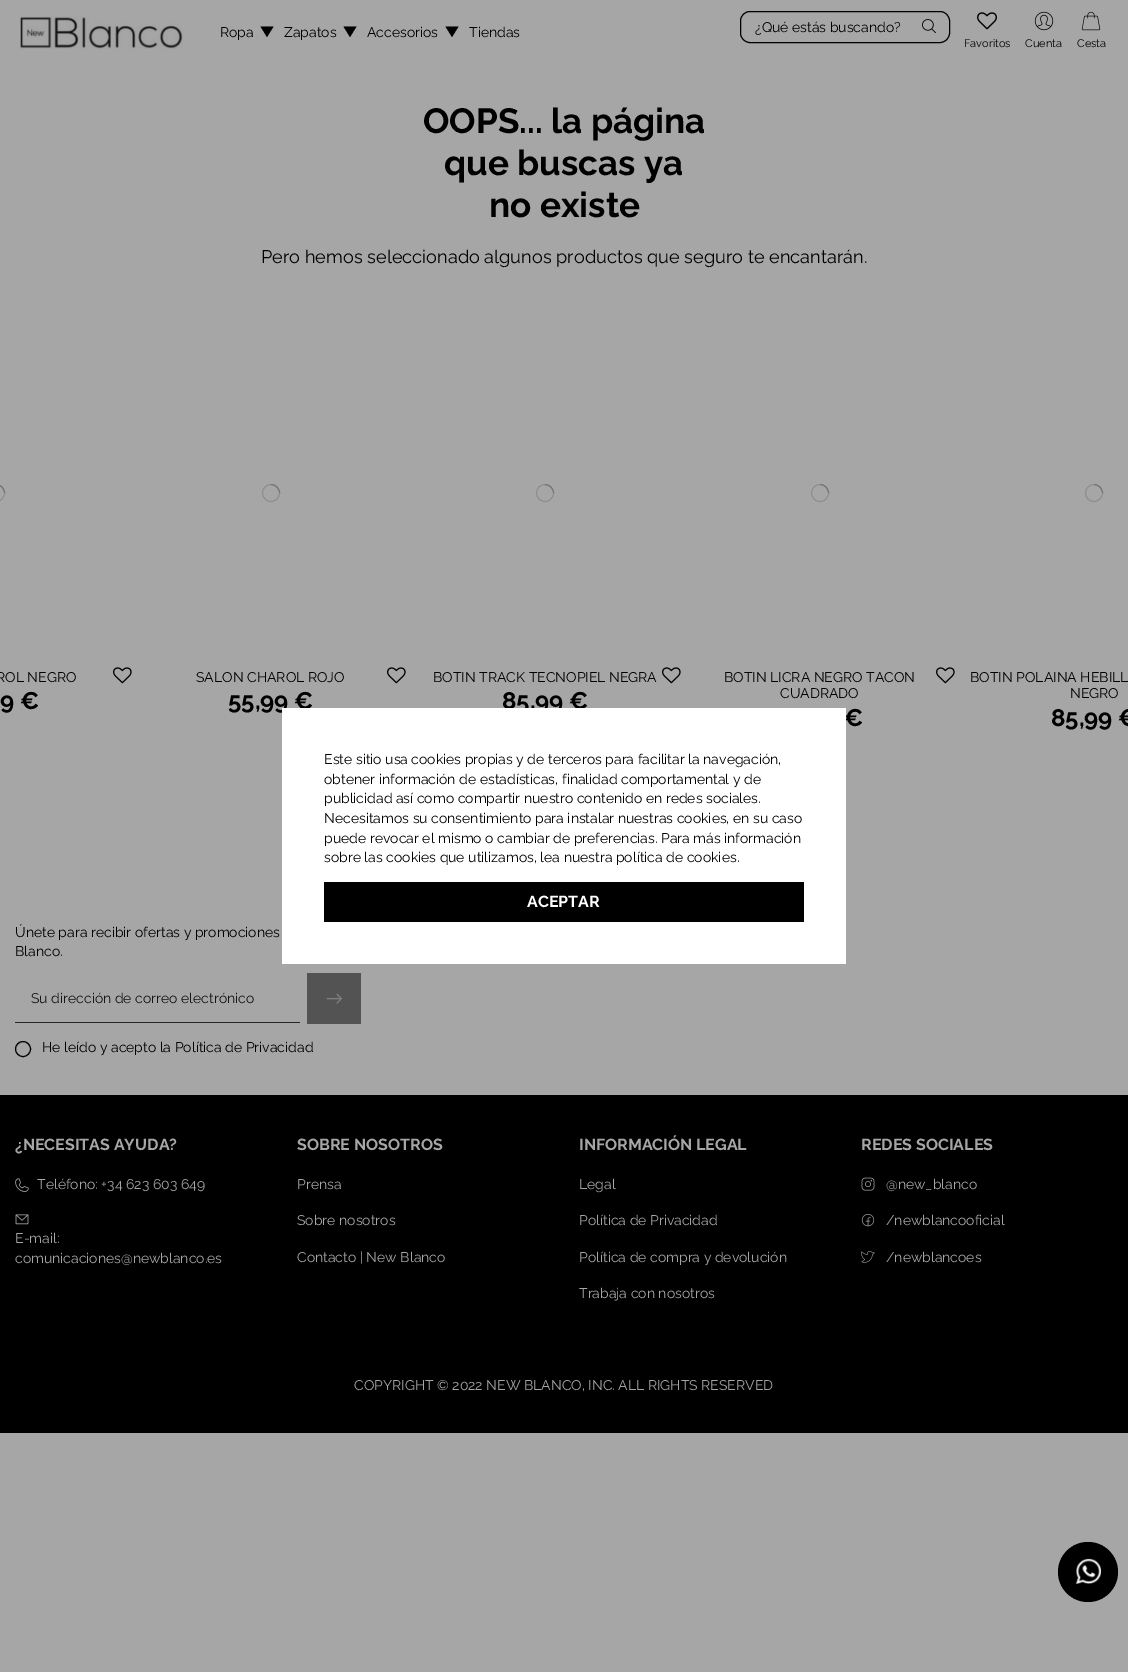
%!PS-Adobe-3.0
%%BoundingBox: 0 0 1128 1672
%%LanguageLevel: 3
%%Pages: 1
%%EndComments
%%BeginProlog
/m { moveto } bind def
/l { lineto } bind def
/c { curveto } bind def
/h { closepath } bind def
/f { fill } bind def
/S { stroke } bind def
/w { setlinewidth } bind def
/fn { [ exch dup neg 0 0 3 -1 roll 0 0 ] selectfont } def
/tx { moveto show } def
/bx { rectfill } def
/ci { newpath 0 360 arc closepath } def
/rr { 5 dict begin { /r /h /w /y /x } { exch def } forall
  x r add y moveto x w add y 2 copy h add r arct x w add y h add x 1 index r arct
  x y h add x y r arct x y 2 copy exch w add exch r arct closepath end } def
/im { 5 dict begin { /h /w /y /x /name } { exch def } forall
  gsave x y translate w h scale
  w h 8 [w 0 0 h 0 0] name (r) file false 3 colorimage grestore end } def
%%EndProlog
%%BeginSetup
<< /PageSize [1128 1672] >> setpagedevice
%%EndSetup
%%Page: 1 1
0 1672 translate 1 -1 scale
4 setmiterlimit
0.651 setgray
0 0 1128 1672 bx
(image0.raw) 20 16 163 33 im
/Raleway-Regular 14 fn
0 setgray
(Ropa) 220 37 tx
267 37 m 260.5 26.5 l 273.5 26.5 l h f
(Zapatos) 284 37 tx
350 37 m 343.5 26.5 l 356.5 26.5 l h f
(Accesorios) 367 37 tx
452 37 m 445.5 26.5 l 458.5 26.5 l h f
(Tiendas) 469 37 tx
740.5 11.5 209 31 9.5 rr S
(¿Qué estás buscando?) 755 32 tx
(image1.raw) 922 19 14 15 im
(image2.raw) 977 12 20 18 im
/Raleway-Regular 11 fn
(Favoritos) 964 47 tx
(image3.raw) 1034 11 20 20 im
(Cuenta) 1025 47 tx
(image4.raw) 1081 11 20 20 im
(Cesta) 1077 47 tx
/Raleway-Bold 35 fn
(OOPS... la página) 423 133 tx
(que buscas ya) 444 175 tx
(no existe) 489 217 tx
/Raleway-Regular 18.2 fn
(Pero hemos seleccionado algunos productos que seguro te encantarán.) 261 263 tx
0.553 setgray
0.9 w
-4 493 8.5 ci S
0.455 setgray
4.5 493 m 4.5 488.5 0.5 484.5 -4 484.5 c S
(image5.raw) 113 667 19 17 im
/Raleway-Regular 14 fn
0 setgray
(ROL NEGRO) -4 682 tx
/Raleway-Bold 24 fn
(9 €) 0 709 tx
0.553 setgray
271 493 8.5 ci S
0.455 setgray
279.5 493 m 279.5 488.5 275.5 484.5 271 484.5 c S
(image5.raw) 387 667 19 17 im
/Raleway-Regular 14 fn
0 setgray
(SALON CHAROL ROJO) 196 682 tx
/Raleway-Bold 24 fn
(55,99 €) 228 709 tx
0.553 setgray
545 493 8.5 ci S
0.455 setgray
553.5 493 m 553.5 488.5 549.5 484.5 545 484.5 c S
(image5.raw) 662 667 19 17 im
/Raleway-Regular 14 fn
0 setgray
(BOTIN TRACK TECNOPIEL NEGRA) 433 682 tx
/Raleway-Bold 24 fn
(85,99 €) 502 709 tx
0.553 setgray
820 493 8.5 ci S
0.455 setgray
828.5 493 m 828.5 488.5 824.5 484.5 820 484.5 c S
(image5.raw) 936 667 19 17 im
/Raleway-Regular 14 fn
0 setgray
(BOTIN LICRA NEGRO TACON) 724 682 tx
(CUADRADO) 780 698 tx
/Raleway-Bold 24 fn
(€) 844 726 tx
0.553 setgray
1094 493 8.5 ci S
0.455 setgray
1102.5 493 m 1102.5 488.5 1098.5 484.5 1094 484.5 c S
/Raleway-Regular 14 fn
0 setgray
(BOTIN POLAINA HEBILL) 970 682 tx
(NEGRO) 1070 698 tx
/Raleway-Bold 24 fn
(85,99 €) 1051 726 tx
0 1095 1128 338 bx
/Raleway-Regular 14 fn
(Únete para recibir ofertas y promociones) 15 937 tx
(Blanco.) 15 956 tx
0.082 setgray
(Su dirección de correo electrónico) 31 1003 tx
0.325 setgray
307 973 54 51 bx
(image6.raw) 326 993 16 11 im
0.133 0.149 0.165 setrgbcolor
15 1022 285 1 bx
0.592 setgray
23 1043 m 28 1043 30 1047.5 29.5 1051 c 32.5 1043 20 1038 16.5 1046.5 c 16 1048 16 1049.5 16.5 1051 c 16 1047.5 18 1043 23 1043 c h f
0 setgray
1 w
23 1049 7.5 ci S
(He leído y acepto la Política de Privacidad) 42 1052 tx
/Raleway-Bold 16 fn
0.651 setgray
(¿NECESITAS AYUDA?) 15 1150 tx
(image7.raw) 15 1178 14 14 im
/Raleway-Regular 14 fn
(Teléfono: +34 623 603 649) 37 1189 tx
(image8.raw) 15 1214 14 11 im
(E-mail:) 15 1243 tx
(comunicaciones@newblanco.es) 15 1263 tx
/Raleway-Bold 16 fn
(SOBRE NOSOTROS) 297 1150 tx
/Raleway-Regular 14 fn
(Prensa) 297 1189 tx
(Sobre nosotros) 297 1225 tx
(Contacto | New Blanco) 297 1262 tx
/Raleway-Bold 16 fn
(INFORMACIÓN LEGAL) 579 1150 tx
/Raleway-Regular 14 fn
(Legal) 579 1189 tx
(Política de Privacidad) 579 1225 tx
(Política de compra y devolución) 579 1262 tx
(Trabaja con nosotros) 579 1298 tx
/Raleway-Bold 16 fn
(REDES SOCIALES) 861 1150 tx
(image9.raw) 861 1177 14 14 im
/Raleway-Regular 14 fn
(@new_blanco) 886 1189 tx
(image10.raw) 861 1213 14 14 im
(/newblancooficial) 886 1225 tx
(image11.raw) 861 1251 14 12 im
(/newblancoes) 886 1262 tx
(COPYRIGHT © 2022 NEW BLANCO, INC. ALL RIGHTS RESERVED) 354 1390 tx
1 setgray
282 708 564 256 bx
0 setgray
(Este sitio usa cookies propias y de terceros para facilitar la navegación,) 324 764 tx
(obtener información de estadísticas, finalidad comportamental y de) 324 784 tx
(publicidad así como compartir nuestro contenido en redes sociales.) 324 803 tx
(Necesitamos su consentimiento para instalar nuestras cookies, en su caso) 324 823 tx
(puede revocar el mismo o cambiar de preferencias. Para más información) 324 843 tx
(sobre las cookies que utilizamos, lea nuestra política de cookies.) 324 862 tx
324 882 480 40 bx
/Raleway-Bold 16 fn
1 setgray
(ACEPTAR) 527 907 tx
0 setgray
1088 1572 30 ci f
(image12.raw) 1075 1558 26 26 im
showpage
%%EOF
